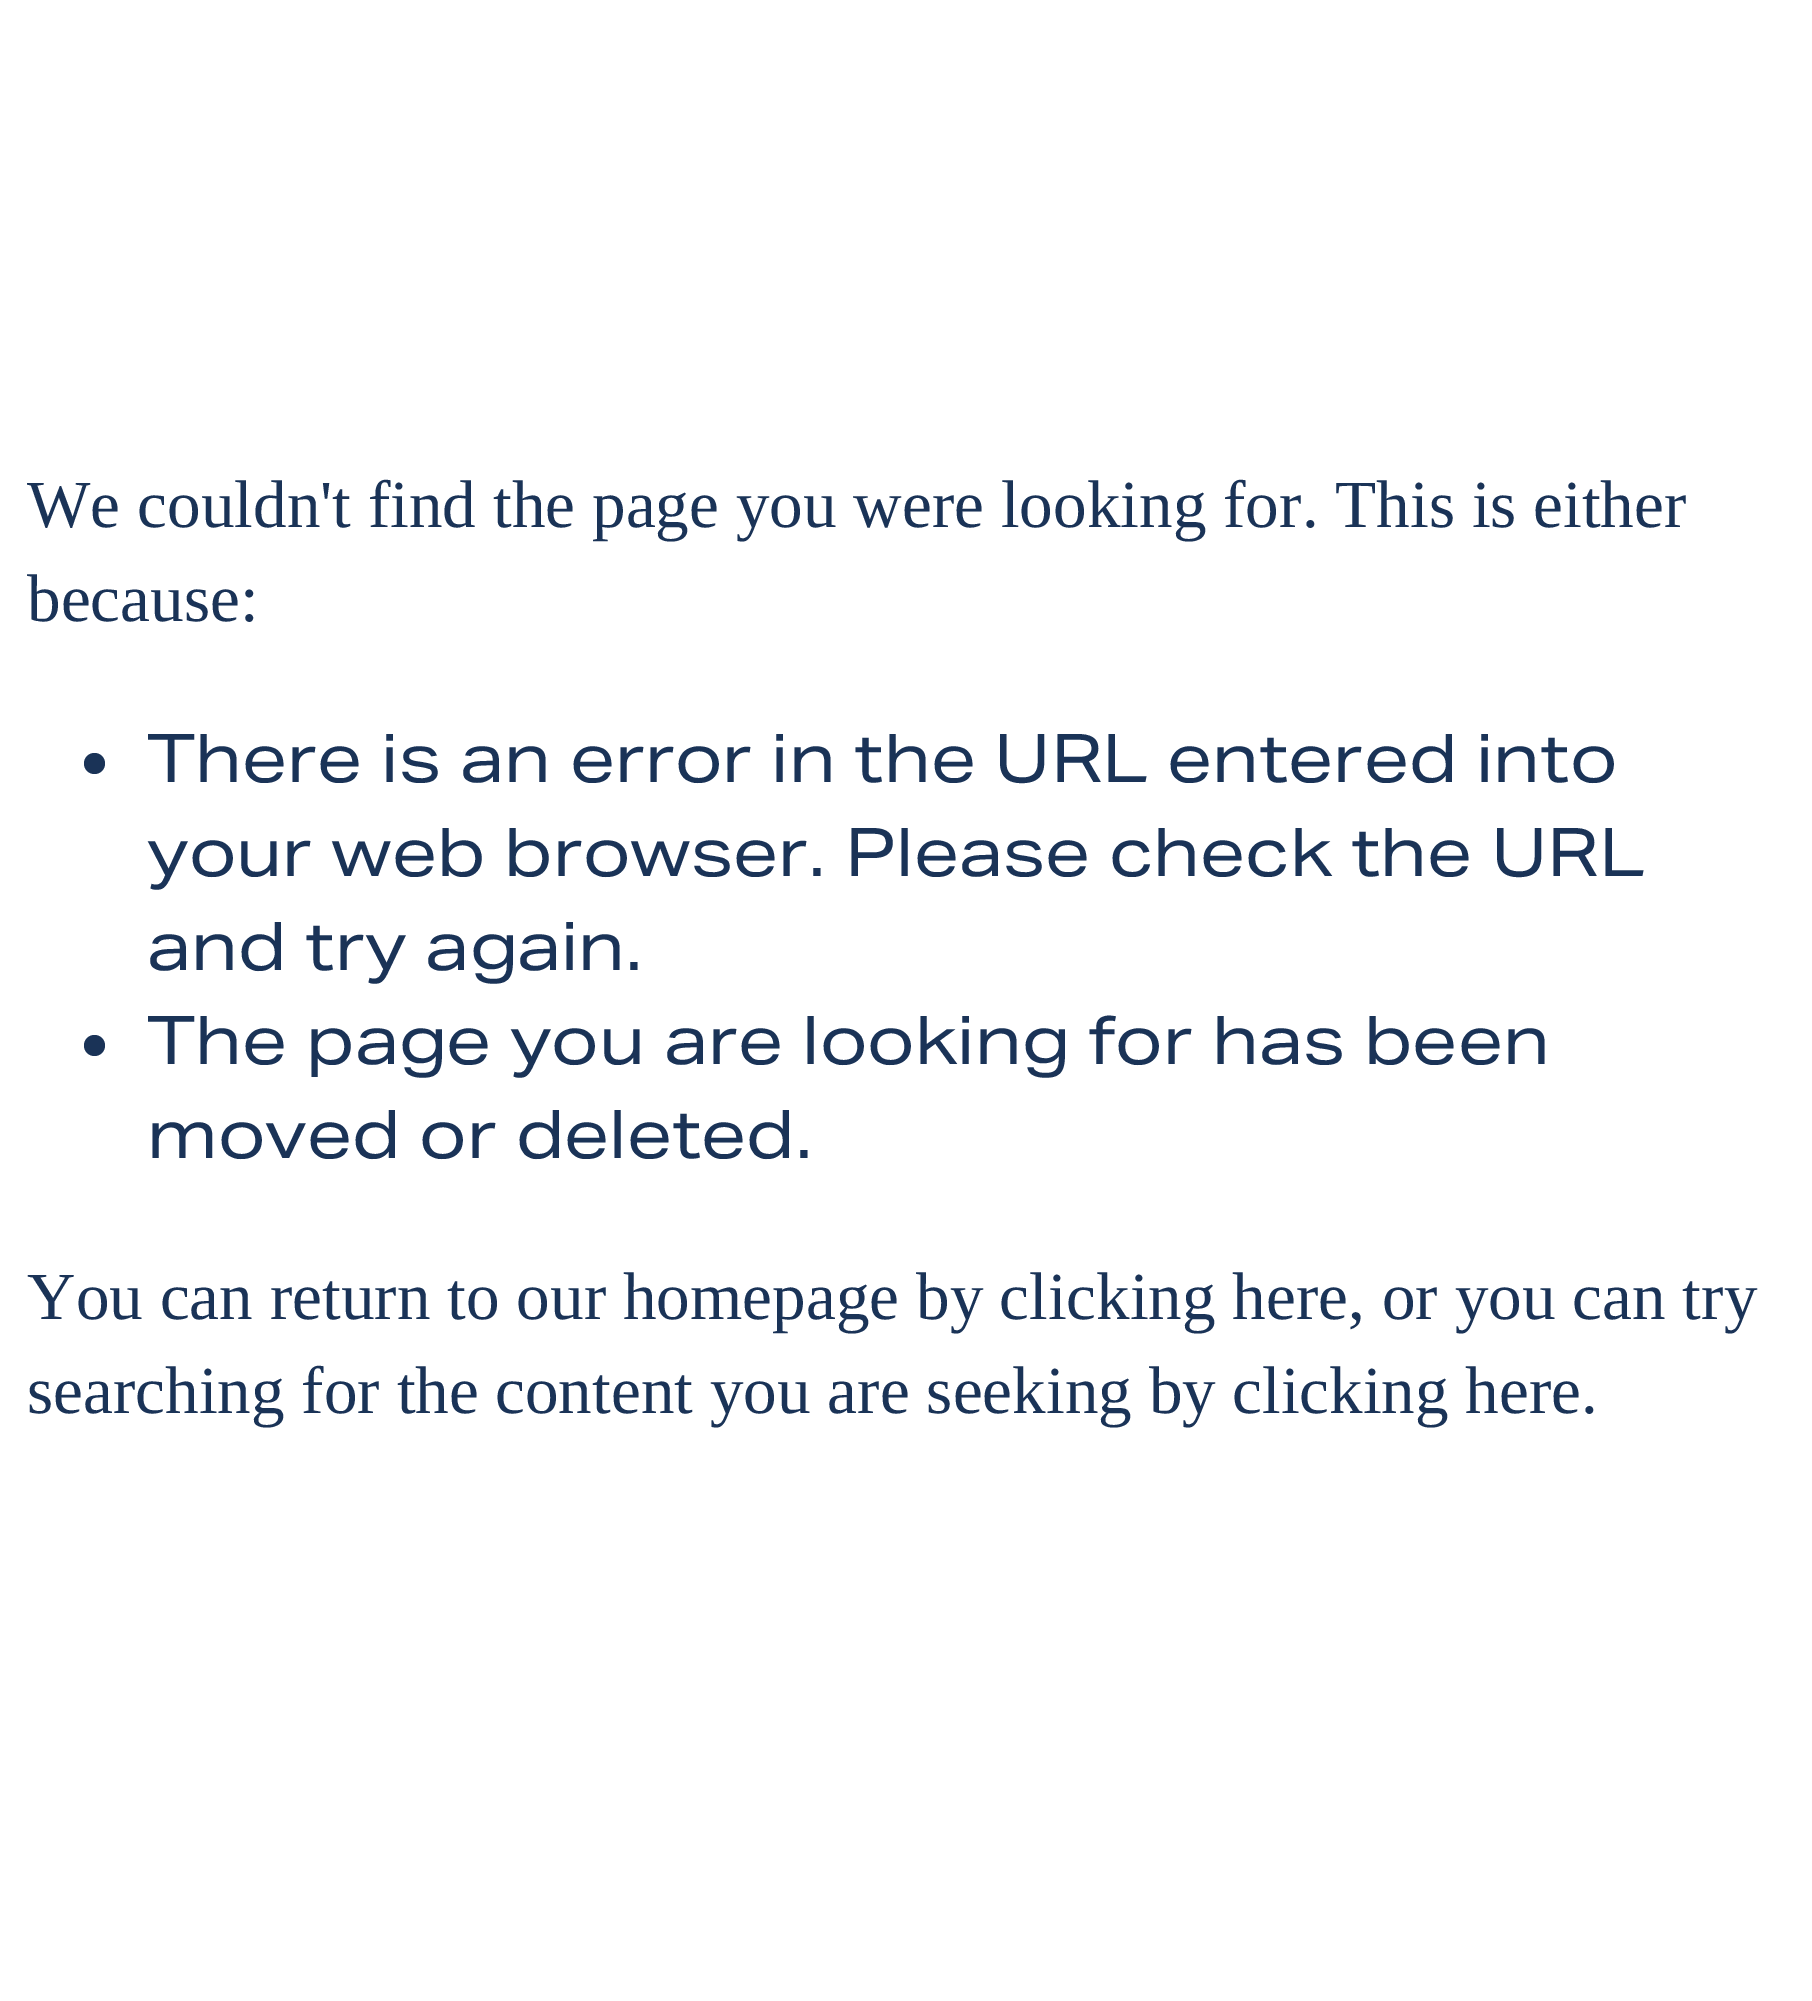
%!PS-Adobe-3.0
%%BoundingBox: 0 0 1812 2001
%%LanguageLevel: 3
%%Pages: 1
%%EndComments
%%BeginProlog
/f { fill } bind def
/fn { [ exch dup neg 0 0 3 -1 roll 0 0 ] selectfont } def
/tx { moveto show } def
/bx { rectfill } def
/ci { newpath 0 360 arc closepath } def
%%EndProlog
%%BeginSetup
<< /PageSize [1812 2001] >> setpagedevice
%%EndSetup
%%Page: 1 1
0 2001 translate 1 -1 scale
4 setmiterlimit
1 setgray
0 0 1812 2001 bx
/LiberationSerif-Regular 67.25 fn
0.102 0.2 0.341 setrgbcolor
(We couldn't find the page you were looking for. This is either) 27 527 tx
(because:) 27 621 tx
94.5 763.5 10.5 ci f
/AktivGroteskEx-Regular 67.25 fn
(There is an error in the URL entered into) 147 782 tx
(your web browser. Please check the URL) 147 876 tx
(and try again.) 147 970 tx
94.5 1045.5 10.5 ci f
(The page you are looking for has been) 147 1064 tx
(moved or deleted.) 147 1158 tx
/LiberationSerif-Regular 67.25 fn
(You can return to our homepage by) 27 1319 tx
(clicking here, or you can try) 999 1319 tx
(searching for the) 27 1413 tx
(content you are seeking by) 495 1413 tx
(clicking here.) 1232 1413 tx
showpage
%%EOF
